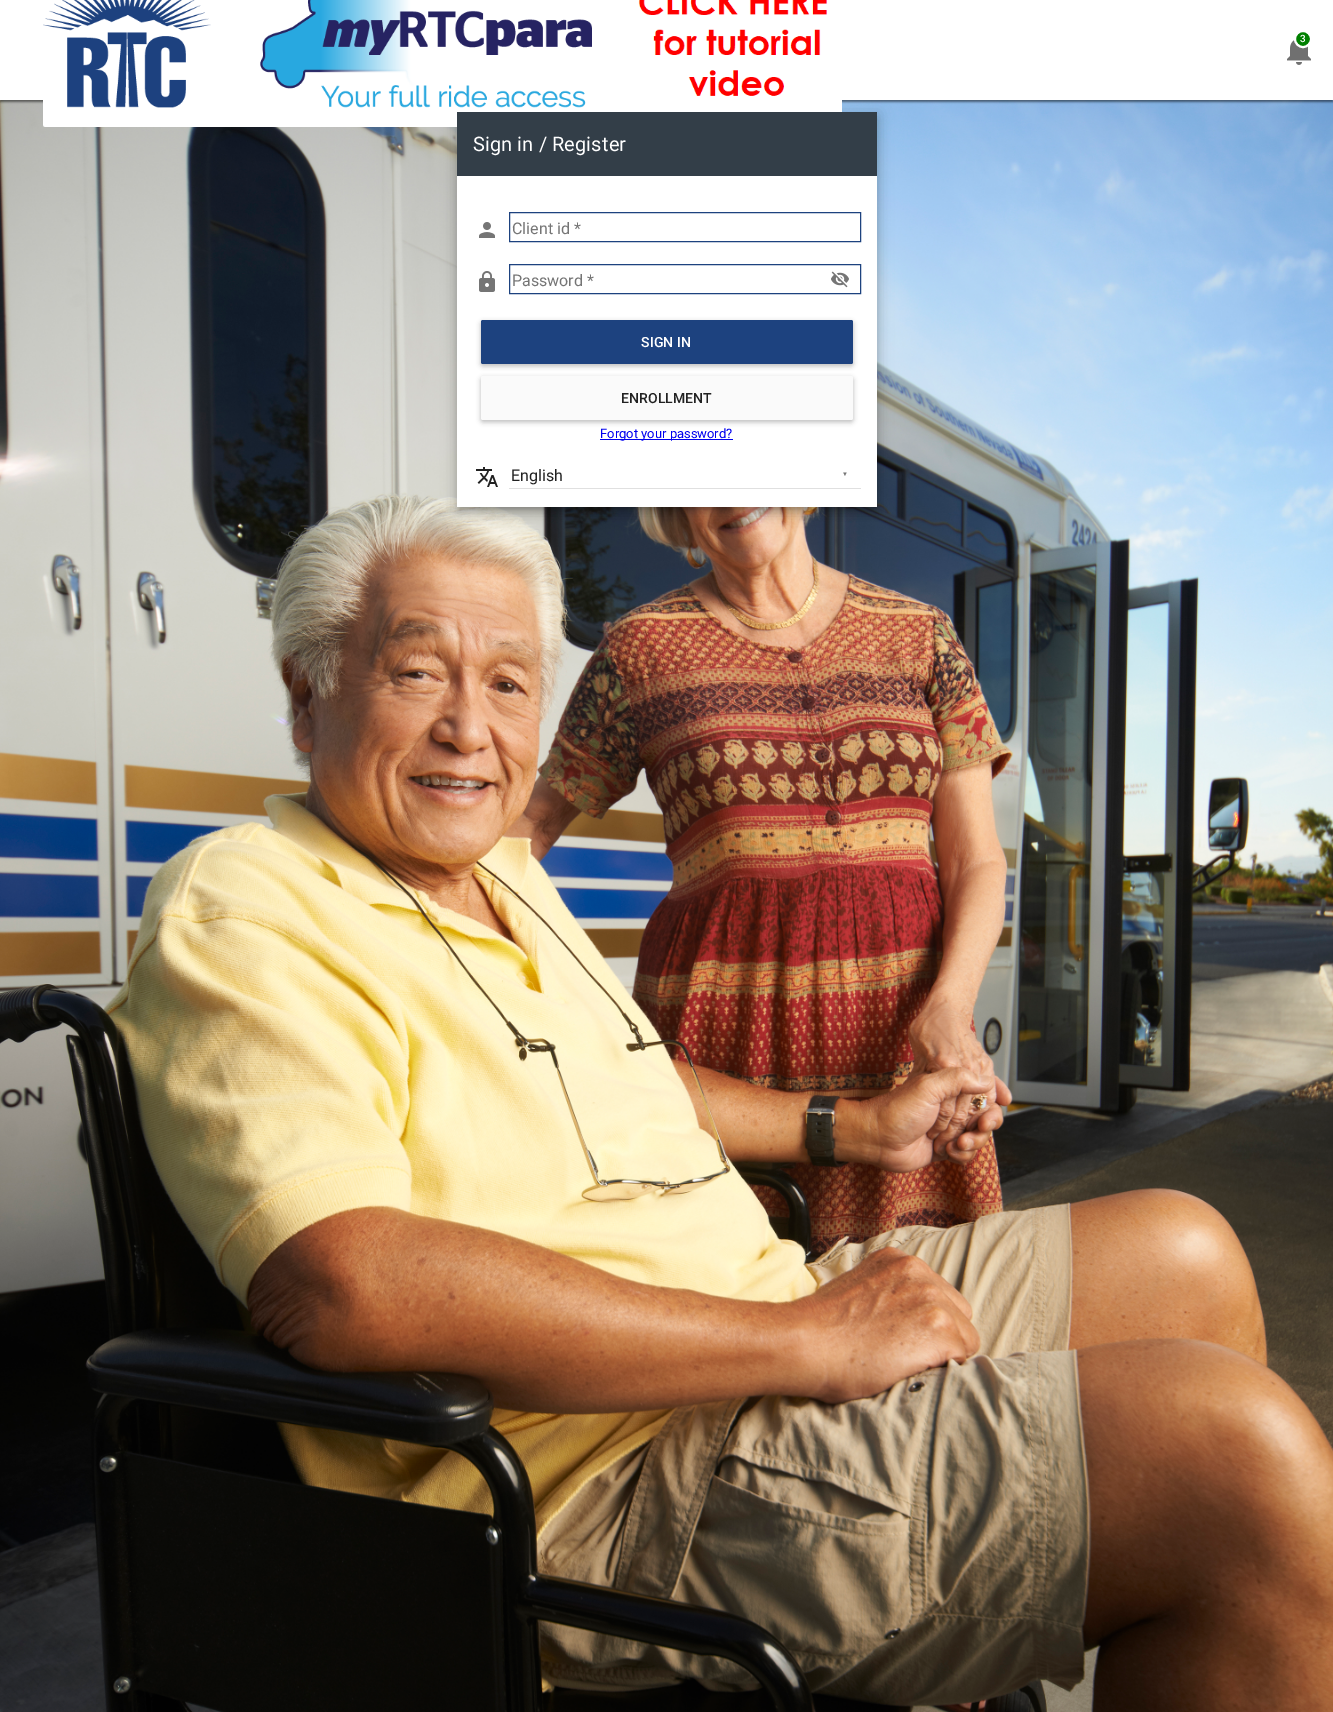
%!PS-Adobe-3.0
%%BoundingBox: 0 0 1333 1712
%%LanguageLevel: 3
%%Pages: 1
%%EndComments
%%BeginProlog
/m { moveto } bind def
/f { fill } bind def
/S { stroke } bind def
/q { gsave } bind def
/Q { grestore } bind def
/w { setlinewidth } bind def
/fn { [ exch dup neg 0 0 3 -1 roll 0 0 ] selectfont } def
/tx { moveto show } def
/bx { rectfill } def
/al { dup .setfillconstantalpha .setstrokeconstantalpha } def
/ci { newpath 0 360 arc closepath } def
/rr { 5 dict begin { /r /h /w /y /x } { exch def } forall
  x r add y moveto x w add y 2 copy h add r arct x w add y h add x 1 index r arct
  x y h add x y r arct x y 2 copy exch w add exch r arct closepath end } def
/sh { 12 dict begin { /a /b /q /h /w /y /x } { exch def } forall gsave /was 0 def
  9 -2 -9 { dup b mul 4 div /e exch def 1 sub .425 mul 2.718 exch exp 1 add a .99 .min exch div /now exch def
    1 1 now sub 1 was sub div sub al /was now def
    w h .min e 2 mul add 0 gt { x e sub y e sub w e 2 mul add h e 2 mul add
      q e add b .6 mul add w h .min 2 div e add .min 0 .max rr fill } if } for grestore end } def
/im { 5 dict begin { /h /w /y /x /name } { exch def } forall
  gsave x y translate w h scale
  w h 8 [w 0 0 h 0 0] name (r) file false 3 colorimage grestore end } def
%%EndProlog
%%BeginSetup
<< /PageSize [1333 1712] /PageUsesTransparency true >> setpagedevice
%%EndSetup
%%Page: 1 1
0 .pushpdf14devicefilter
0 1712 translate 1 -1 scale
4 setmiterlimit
1 setgray
0 0 1333 1712 bx
(image2.raw) 0 100 1333 1612 im
0 setgray
0 2 1333 100 0 1 0.5 sh
455 113 424 399 0 7 0.12 sh
1 setgray
0 0 1333 100 bx
0 setgray
456 119 422 397 0 5 0.14 sh
460 120 414 389 0 2.5 0.2 sh
(image0.raw) 43 0 799 127 im
(image1.raw) 1287 39 24 26 im
0 0.502 0 setrgbcolor
1303 39 8 ci q f Q
1 setgray
2 w
S
/Roboto-Medium 10 fn
1300 42 m 0.1 0 (3) ashow
0.2 0.243 0.282 setrgbcolor
457 112 420 64 bx
/Roboto-Regular 20 fn
1 setgray
473 151 m 0.1 0 (Sign in / Register) ashow
457 176 420 331 bx
(image3.raw) 479 222 16 16 im
0.114 0.259 0.498 setrgbcolor
1 w
509.5 212.5 351 29 rectstroke
/Roboto-Regular 16 fn
0.459 setgray
(Client id *) 512 234 tx
(image4.raw) 479 271 16 21 im
0.114 0.259 0.498 setrgbcolor
509.5 264.5 351 29 rectstroke
0.459 setgray
(Password *) 512 286 tx
(image5.raw) 831 271 18 17 im
0 setgray
481 322 372 44 2 2.5 0.26 sh
0.114 0.259 0.498 setrgbcolor
481 320 372 44 2 rr f
/Roboto-Medium 14 fn
1 setgray
641 347 m 0.1 0 (SIGN IN) ashow
0 setgray
481 378 372 44 2 2.5 0.26 sh
0.98 setgray
481 376 372 44 2 rr f
0.129 setgray
621 403 m 0.1 0 (ENROLLMENT) ashow
0 0 0.933 setrgbcolor
600 439 133 1 bx
/Roboto-Regular 13 fn
(Forgot your password?) 600 438 tx
(image6.raw) 476 467 22 20 im
0.878 setgray
509 488 352 1 bx
/Roboto-Regular 16 fn
0.129 setgray
(English) 511 481 tx
/LiberationSans-Regular 6 fn
0.459 setgray
842 476 m 6 0 (▼) ashow
.poppdf14devicefilter showpage
%%EOF
